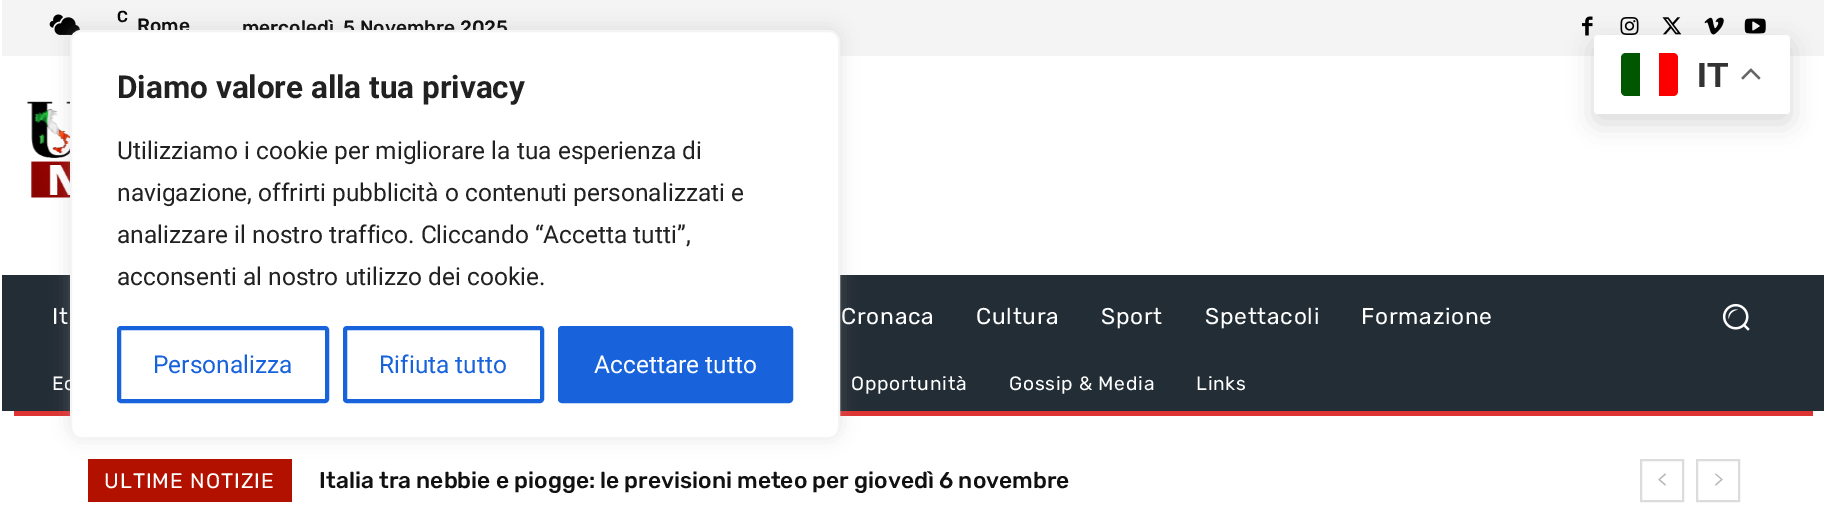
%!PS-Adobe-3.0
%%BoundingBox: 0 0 1824 508
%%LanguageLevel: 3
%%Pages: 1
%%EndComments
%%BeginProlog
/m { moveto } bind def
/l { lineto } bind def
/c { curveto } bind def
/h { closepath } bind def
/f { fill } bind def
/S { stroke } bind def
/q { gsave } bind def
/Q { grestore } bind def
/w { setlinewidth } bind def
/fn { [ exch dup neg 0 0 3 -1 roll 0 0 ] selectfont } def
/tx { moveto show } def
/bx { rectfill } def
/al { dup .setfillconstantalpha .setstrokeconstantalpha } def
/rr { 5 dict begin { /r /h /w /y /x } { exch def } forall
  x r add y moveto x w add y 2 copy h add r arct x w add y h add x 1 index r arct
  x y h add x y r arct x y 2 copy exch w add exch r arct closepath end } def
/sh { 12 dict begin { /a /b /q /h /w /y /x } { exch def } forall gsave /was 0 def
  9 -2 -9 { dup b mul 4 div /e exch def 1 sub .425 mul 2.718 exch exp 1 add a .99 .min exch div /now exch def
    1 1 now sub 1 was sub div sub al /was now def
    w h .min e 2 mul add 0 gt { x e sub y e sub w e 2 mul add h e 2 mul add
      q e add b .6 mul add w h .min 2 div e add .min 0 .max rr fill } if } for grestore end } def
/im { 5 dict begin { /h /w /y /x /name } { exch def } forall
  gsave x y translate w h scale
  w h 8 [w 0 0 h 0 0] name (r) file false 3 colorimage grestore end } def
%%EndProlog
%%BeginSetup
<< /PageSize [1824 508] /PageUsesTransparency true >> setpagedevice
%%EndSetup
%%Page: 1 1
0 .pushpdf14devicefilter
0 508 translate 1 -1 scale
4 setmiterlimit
1 setgray
0 0 1824 508 bx
0.957 setgray
2 0 1822 56 bx
(image0.raw) 49 14 31 21 im
/Rubik-Medium 16 fn
0 setgray
(C) 117 22 tx
/Rubik-Medium 19.25 fn
(Rome) 137 32 tx
(mercoledì, 5 Novembre 2025) 242 34 tx
(image1.raw) 1582 16 11 20 im
(image2.raw) 1620 17 19 18 im
(image3.raw) 1662 17 20 18 im
(image4.raw) 1704 17 20 18 im
(image5.raw) 1744 18 22 16 im
(image6.raw) 27 101 43 97 im
0.137 0.176 0.208 setrgbcolor
2 275 1822 136 bx
/Rubik-Regular 22.75 fn
1 setgray
52 324 m 0.75 0 (It) ashow
841 324 m 0.75 0 (Cronaca) ashow
976 324 m 0.75 0 (Cultura) ashow
1101 324 m 0.75 0 (Sport) ashow
1205 324 m 0.75 0 (Spettacoli) ashow
1361 324 m 0.75 0 (Formazione) ashow
(image7.raw) 1722 303 28 28 im
/Rubik-Regular 19.25 fn
52 390 m 0.75 0 (Ec) ashow
851 390 m 0.75 0 (Opportunità) ashow
1009 390 m 0.75 0 (Gossip & Media) ashow
1196 390 m 0.75 0 (Links) ashow
0.867 0.2 0.2 setrgbcolor
14 411 1799 5 bx
0.698 0.067 0 setrgbcolor
88 459 204 43 bx
/Rubik-Regular 21 fn
1 setgray
104 488 m 1 0 (ULTIME NOTIZIE) ashow
/Rubik-Medium 22.75 fn
0.067 setgray
(Italia tra nebbie e piogge: le previsioni meteo per giovedì 6 novembre) 319 488 tx
0.863 setgray
2 w
1641 460 42 41 rectstroke
(image8.raw) 1658 473 8 13 im
1697 460 42 41 rectstroke
(image9.raw) 1715 473 8 13 im
0 setgray
1594 44 196 79 4 13 0.15 sh
1 setgray
1594 35 196 79 4 rr f
0 0.341 0 setrgbcolor
1626 53 m 1640 53 l 1640 96 l 1626 96 l 1623 96 1621 94 1621 91 c 1621 58 l 1621 55 1623 53 1626 53 c h f
0.988 0 0 setrgbcolor
1659 53 m 1673 53 l 1676 53 1678 55 1678 58 c 1678 91 l 1678 94 1676 96 1673 96 c 1659 96 l h f
/LiberationSans-Bold 35 fn
0.2 setgray
(IT) 1697 87 tx
(image10.raw) 1741 68 20 12 im
0.675 0.671 0.671 setrgbcolor
70 28 770 410 11 9 0.3 sh
1 setgray
71 31 768 407 10 rr q f Q
0.957 setgray
S
/Roboto-Bold 31.5 fn
0.129 setgray
(Diamo valore alla tua privacy) 117 98 tx
/Roboto-Regular 24.5 fn
(Utilizziamo i cookie per migliorare la tua esperienza di) 117 159 tx
(navigazione, offrirti pubblicità o contenuti personalizzati e) 117 201 tx
(analizzare il nostro traffico. Cliccando “Accetta tutti”,) 117 243 tx
(acconsenti al nostro utilizzo dei cookie.) 117 285 tx
0.094 0.388 0.863 setrgbcolor
4 w
119 328 208 73 2 rr S
(Personalizza) 153 373 tx
345 328 197 73 2 rr S
(Rifiuta tutto) 379 373 tx
560 328 231 73 2 rr q f Q
S
1 setgray
(Accettare tutto) 594 373 tx
.poppdf14devicefilter showpage
%%EOF
